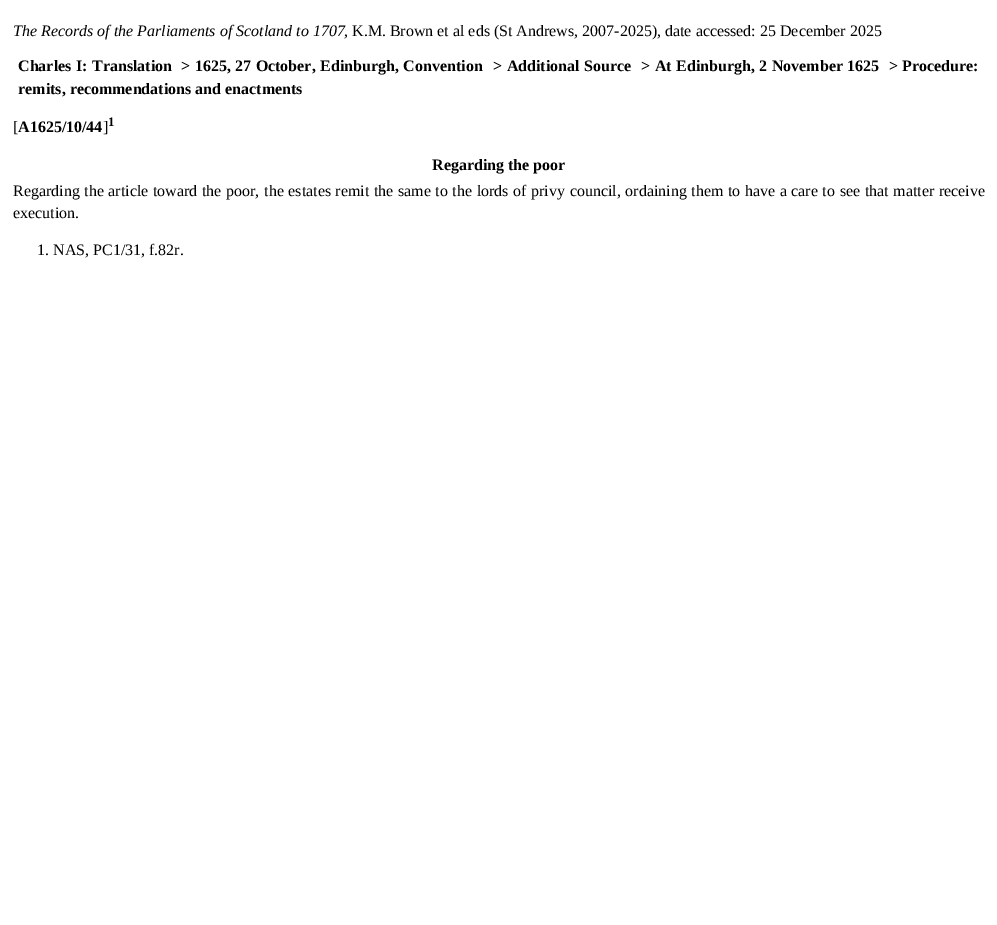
%!PS-Adobe-3.0
%%BoundingBox: 0 0 997 925
%%LanguageLevel: 3
%%Pages: 1
%%EndComments
%%BeginProlog
/m { moveto } bind def
/fn { [ exch dup neg 0 0 3 -1 roll 0 0 ] selectfont } def
/tx { moveto show } def
/bx { rectfill } def
%%EndProlog
%%BeginSetup
<< /PageSize [997 925] >> setpagedevice
%%EndSetup
%%Page: 1 1
0 925 translate 1 -1 scale
4 setmiterlimit
1 setgray
0 0 997 925 bx
/LiberationSerif-Italic 16 fn
0 setgray
(The Records of the Parliaments of Scotland to 1707) 13 36 tx
/LiberationSerif-Regular 16 fn
(, K.M. Brown et al eds \(St Andrews, 2007-2025\), date accessed: 25 December 2025) 344 36 tx
/LiberationSerif-Bold 16 fn
18 71 m 0.5 0 32 (Charles I: Translation) widthshow
181 71 m 0.5 0 32 (> 1625, 27 October, Edinburgh, Convention) widthshow
493 71 m 0.5 0 32 (> Additional Source) widthshow
641 71 m 0.5 0 32 (> At Edinburgh, 2 November 1625) widthshow
(> Procedure:) 889 71 tx
(remits, recommendations and enactments) 18 94 tx
/LiberationSerif-Regular 16 fn
([) 13 132 tx
/LiberationSerif-Bold 16 fn
(A1625/10/44) 18 132 tx
/LiberationSerif-Regular 16 fn
(]) 103 132 tx
/LiberationSerif-Bold 13 fn
(1) 108 126 tx
/LiberationSerif-Bold 16 fn
(Regarding the poor) 432 170 tx
/LiberationSerif-Regular 16 fn
13 196 m 0.6 0 32 (Regarding the article toward the poor, the estates remit the same to the lords of privy council, ordaining them to have a care to see that matter receive) widthshow
(execution.) 13 218 tx
(1. NAS, PC1/31, f.82r.) 37 255 tx
showpage
%%EOF
